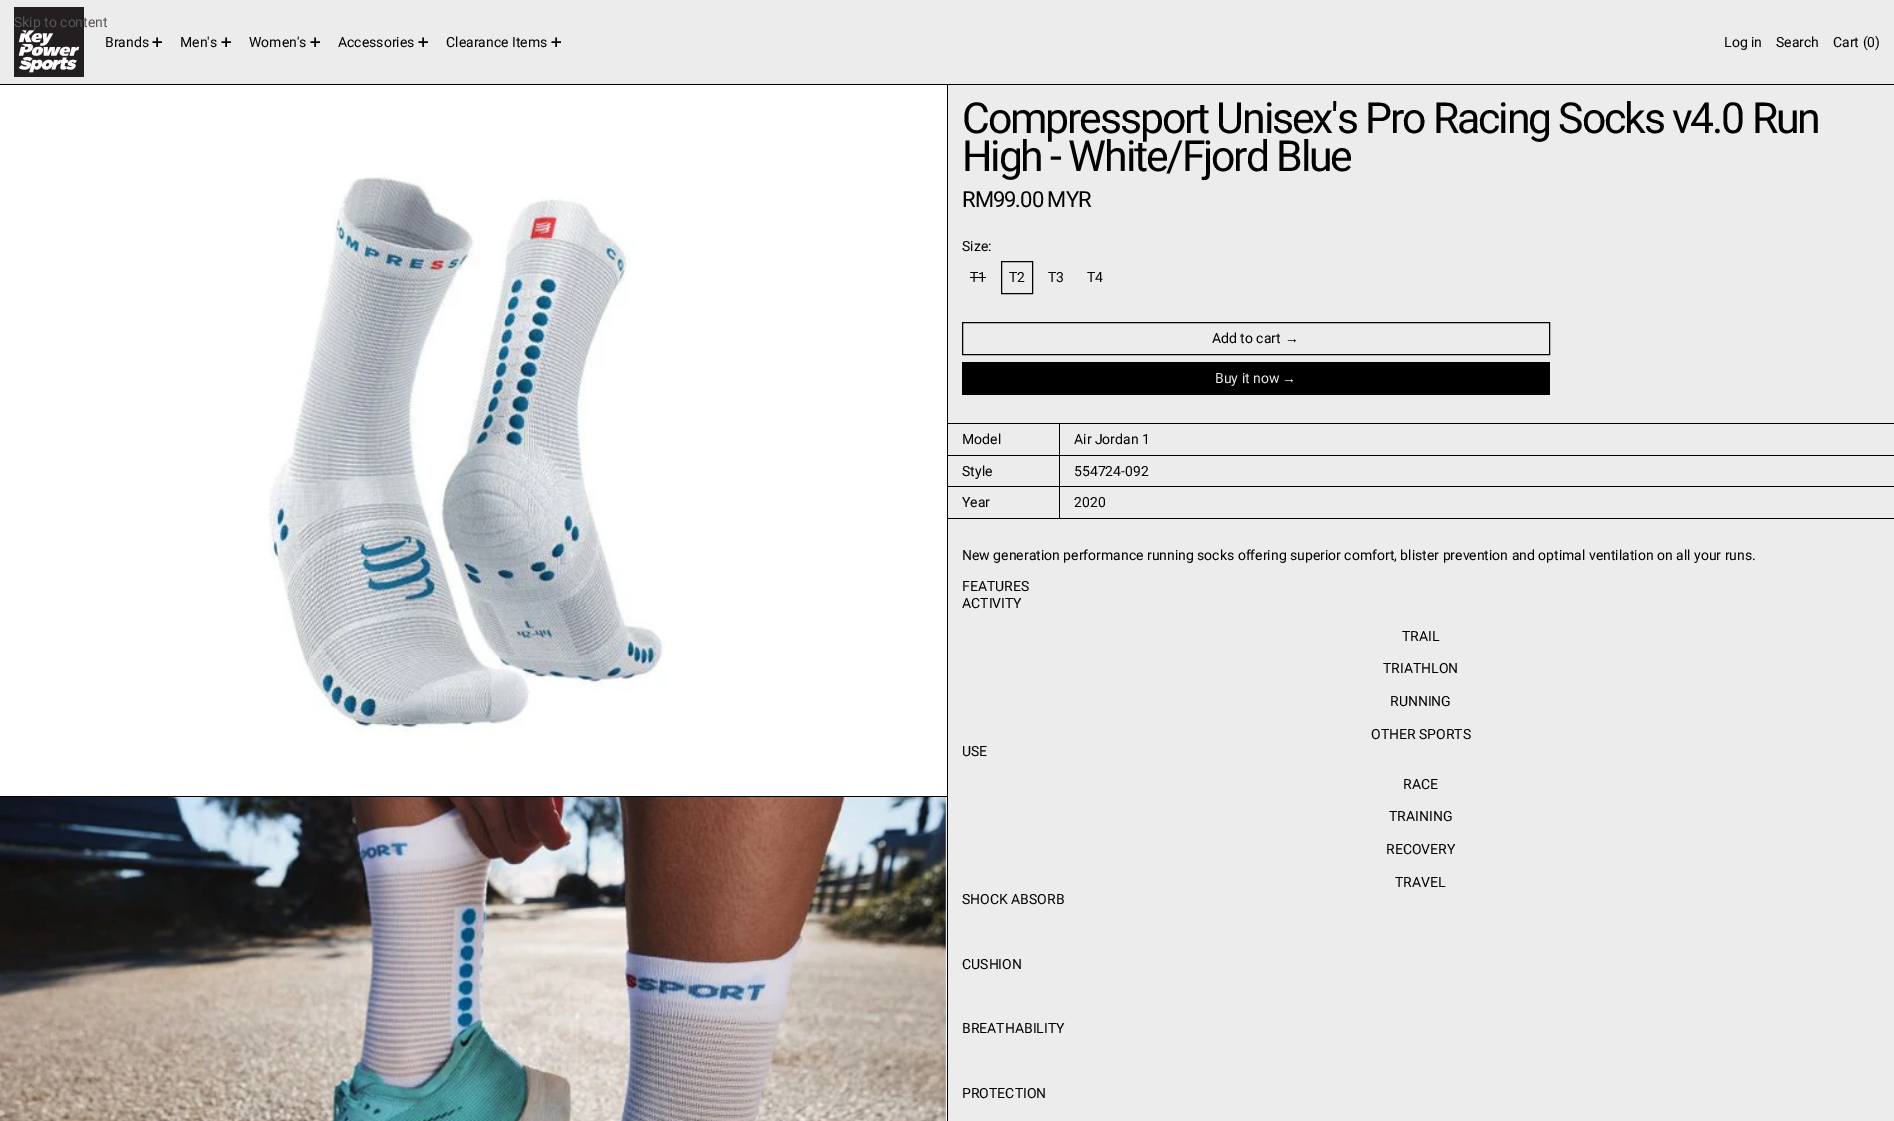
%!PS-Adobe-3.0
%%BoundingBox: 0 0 1894 1121
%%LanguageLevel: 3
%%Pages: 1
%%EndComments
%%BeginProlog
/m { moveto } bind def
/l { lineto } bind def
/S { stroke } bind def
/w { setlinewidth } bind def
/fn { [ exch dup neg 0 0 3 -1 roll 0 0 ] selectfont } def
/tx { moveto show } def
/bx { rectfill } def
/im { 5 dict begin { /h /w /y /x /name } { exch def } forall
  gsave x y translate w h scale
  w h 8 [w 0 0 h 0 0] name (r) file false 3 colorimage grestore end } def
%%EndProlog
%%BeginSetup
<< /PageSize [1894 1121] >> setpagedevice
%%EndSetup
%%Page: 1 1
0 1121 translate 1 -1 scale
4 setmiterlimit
0.925 setgray
0 0 1894 1121 bx
(image0.raw) 14 7 70 70 im
/Roboto-Regular 14 fn
0.349 0.337 0.341 setrgbcolor
(Skip to content) 14 27 tx
0 setgray
0 84 1894 1 bx
(Brands) 105 47 tx
1.5 w
157 37.5 m 157 47 l 152.5 42 m 162 42 l S
(Men's) 180 47 tx
226 37.5 m 226 47 l 221.5 42 m 231 42 l S
(Women's) 249 47 tx
315 37.5 m 315 47 l 310.5 42 m 320 42 l S
(Accessories) 338 47 tx
423 37.5 m 423 47 l 418.5 42 m 428 42 l S
(Clearance Items) 446 47 tx
556 37.5 m 556 47 l 551.5 42 m 561 42 l S
(Log in) 1724 47 tx
(Search) 1776 47 tx
(Cart \(0\)) 1833 47 tx
947 85 1 1036 bx
0 796 947 1 bx
(image1.raw) 0 85 947 711 im
(image2.raw) 0 797 947 324 im
/Roboto-Regular 42.75 fn
962 133 m -2.15 0 (Compressport Unisex's Pro Racing Socks v4.0 Run) ashow
962 171 m -2.15 0 (High - White/Fjord Blue) ashow
/Roboto-Regular 22 fn
962 207 m -1 0 (RM99.00 MYR) ashow
/Roboto-Regular 14 fn
(Size:) 962 251 tx
(T1) 970 282 tx
970 277 16 1 bx
1 w
1001.5 261.5 31 32 rectstroke
(T2) 1009 282 tx
(T3) 1048 282 tx
(T4) 1087 282 tx
962.5 322.5 587 32 rectstroke
(Add to cart) 1212 343 tx
/LiberationSans-Regular 14 fn
(→) 1285 343 tx
962 362 588 33 bx
/Roboto-Regular 14 fn
0.925 setgray
(Buy it now) 1215 383 tx
/LiberationSans-Regular 14 fn
(→) 1282 383 tx
0 setgray
948 423 946 1 bx
1059 424 1 95 bx
948 455 946 1 bx
/Roboto-Regular 14 fn
(Model) 962 444 tx
(Air Jordan 1) 1074 444 tx
948 486 946 1 bx
(Style) 962 476 tx
(554724-092) 1074 476 tx
948 518 946 1 bx
(Year) 962 507 tx
(2020) 1074 507 tx
(New generation performance running socks offering superior comfort, blister prevention and optimal ventilation on all your runs.) 962 560 tx
(FEATURES) 962 591 tx
(ACTIVITY) 962 608 tx
(TRAIL) 1402 641 tx
(TRIATHLON) 1383 673 tx
(RUNNING) 1390 706 tx
(OTHER SPORTS) 1371 739 tx
(USE) 962 756 tx
(RACE) 1403 789 tx
(TRAINING) 1389 821 tx
(RECOVERY) 1386 854 tx
(TRAVEL) 1395 887 tx
(SHOCK ABSORB) 962 904 tx
(CUSHION) 962 969 tx
(BREATHABILITY) 962 1033 tx
(PROTECTION) 962 1098 tx
showpage
%%EOF
